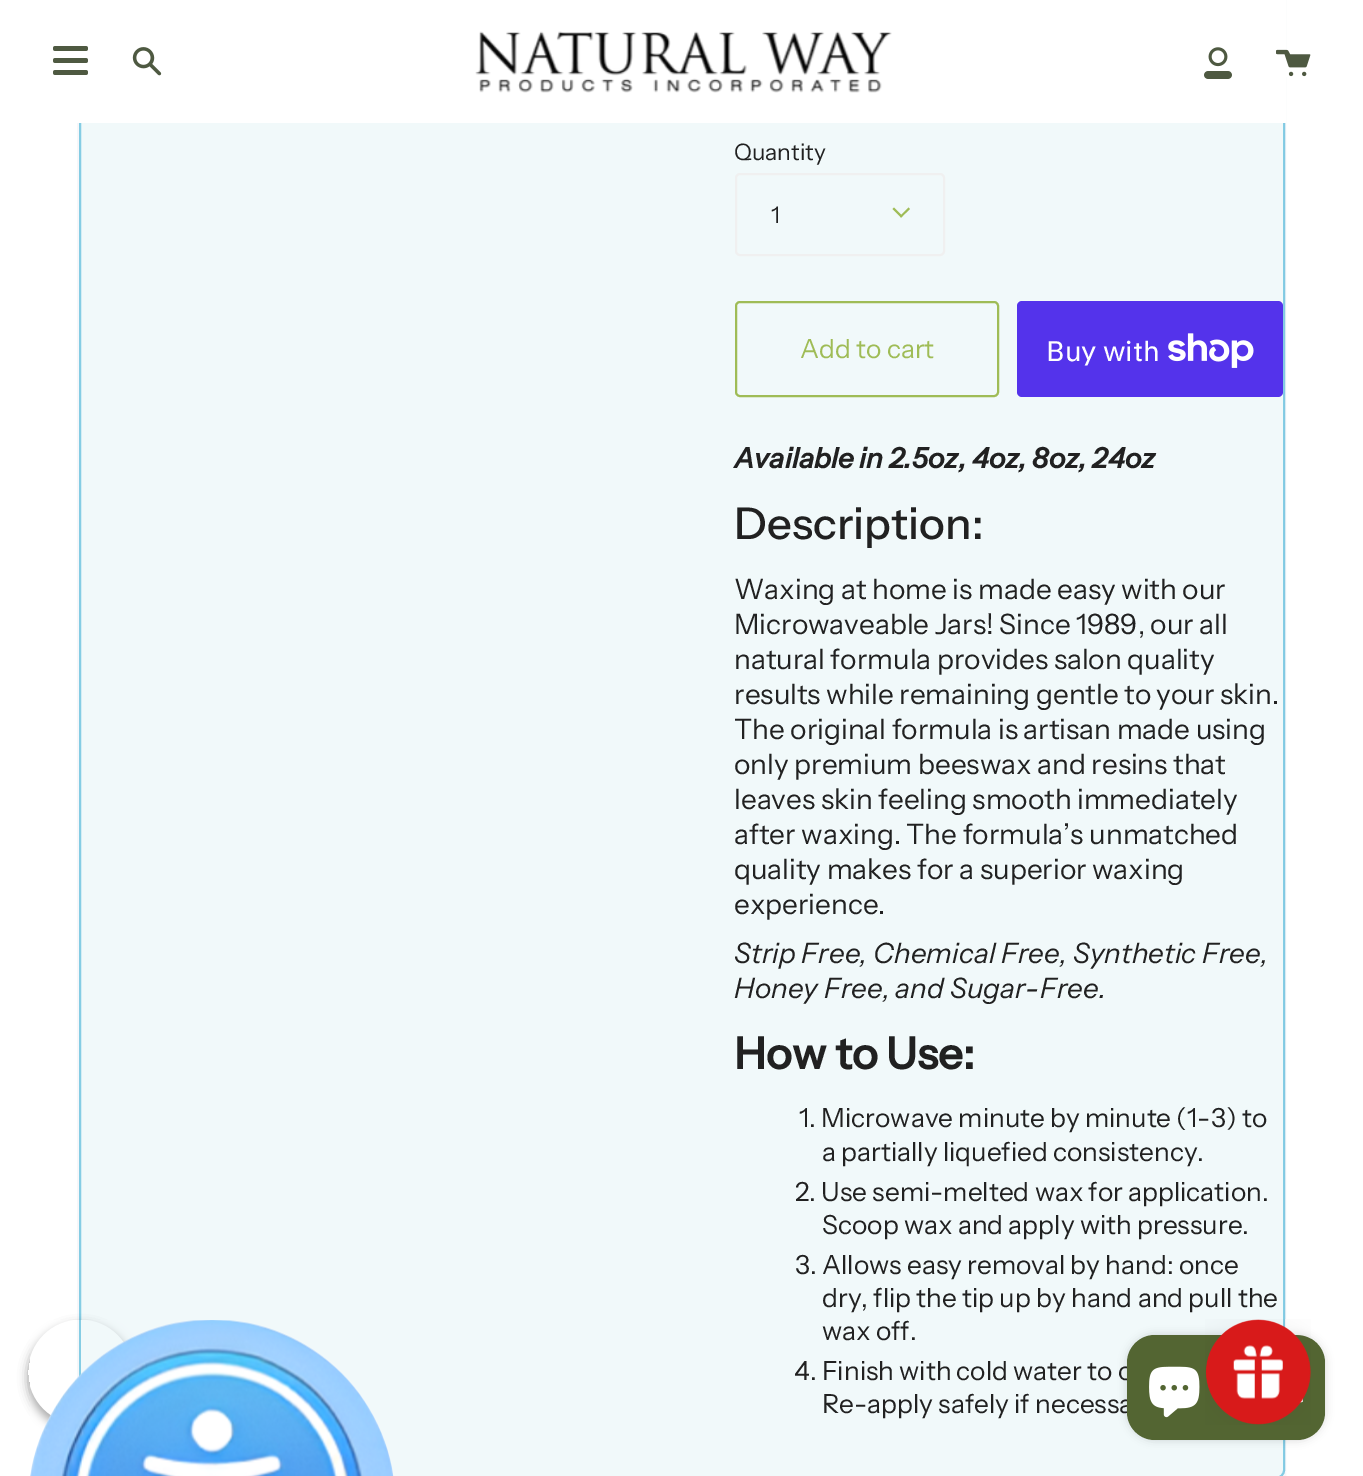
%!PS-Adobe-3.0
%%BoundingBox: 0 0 1363 1476
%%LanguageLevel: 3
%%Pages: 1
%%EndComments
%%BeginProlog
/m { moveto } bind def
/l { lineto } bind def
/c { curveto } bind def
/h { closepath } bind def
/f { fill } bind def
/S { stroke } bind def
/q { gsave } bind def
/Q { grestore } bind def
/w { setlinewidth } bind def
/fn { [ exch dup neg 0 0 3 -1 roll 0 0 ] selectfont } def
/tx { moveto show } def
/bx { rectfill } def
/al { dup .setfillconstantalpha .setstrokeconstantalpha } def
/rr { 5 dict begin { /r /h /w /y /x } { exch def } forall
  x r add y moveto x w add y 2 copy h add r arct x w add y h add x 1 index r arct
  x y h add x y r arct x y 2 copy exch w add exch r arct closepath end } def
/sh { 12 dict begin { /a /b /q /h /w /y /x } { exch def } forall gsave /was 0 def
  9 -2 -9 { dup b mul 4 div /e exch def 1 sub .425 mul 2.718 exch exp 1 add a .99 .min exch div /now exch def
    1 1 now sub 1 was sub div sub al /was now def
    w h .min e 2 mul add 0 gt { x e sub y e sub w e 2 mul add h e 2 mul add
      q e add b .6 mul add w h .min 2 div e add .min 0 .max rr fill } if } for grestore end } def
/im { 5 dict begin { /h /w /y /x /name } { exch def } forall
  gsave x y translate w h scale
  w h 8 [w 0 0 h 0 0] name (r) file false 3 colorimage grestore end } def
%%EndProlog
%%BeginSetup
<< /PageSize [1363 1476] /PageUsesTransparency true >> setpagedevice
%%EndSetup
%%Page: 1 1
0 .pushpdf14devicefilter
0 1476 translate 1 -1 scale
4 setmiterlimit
1 setgray
0 0 1363 1476 bx
0.04 al
0.055 0.247 0.494 setrgbcolor
2 w
78 -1 1207 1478 rectstroke
0.23 al
0.757 0.89 0.914 setrgbcolor
79 -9 1206 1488 9 rr f
0.48 al
0.063 0.616 0.804 setrgbcolor
80 -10 1204 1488 8 rr S
q
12 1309 m 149 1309 l 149 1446 l 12 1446 l h 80.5 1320 m 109.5 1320 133 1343.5 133 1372.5 c 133 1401.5 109.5 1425 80.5 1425 c 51.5 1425 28 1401.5 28 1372.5 c 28 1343.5 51.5 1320 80.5 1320 c h eoclip newpath
1 al
0 setgray
28 1325 105 105 52.5 5 0.23 sh
28 1325 105 105 52.5 5 0.16 sh
Q
1 al
(image0.raw) 30 1320 364 156 im
1 setgray
77 0 1209 123 bx
0.306 0.349 0.255 setrgbcolor
55.5 46 m 82 46 l 82 51 l 55.5 51 l 54 51 53 50 53 48.5 c 53 47 54 46 55.5 46 c h f
58 46 m 85.5 46 l 87 46 88 47 88 48.5 c 88 50 87 51 85.5 51 c 58 51 l h f
55.5 58 m 82 58 l 82 63 l 55.5 63 l 54 63 53 62 53 60.5 c 53 59 54 58 55.5 58 c h f
58 58 m 85.5 58 l 87 58 88 59 88 60.5 c 88 62 87 63 85.5 63 c 58 63 l h f
55.5 70 m 82 70 l 82 75 l 55.5 75 l 54 75 53 74 53 72.5 c 53 71 54 70 55.5 70 c h f
58 70 m 85.5 70 l 87 70 88 71 88 72.5 c 88 74 87 75 85.5 75 c 58 75 l h f
(image1.raw) 132 47 30 29 im
(image2.raw) 475 31 417 62 im
(image3.raw) 1204 47 28 32 im
(image4.raw) 1276 49 35 28 im
/InstrumentSans-Regular 22.75 fn
0.129 setgray
(Quantity) 734 160 tx
0.941 setgray
736 174 208 81 4 rr S
0.129 setgray
(1) 771 223 tx
0.624 0.737 0.337 setrgbcolor
900 216 m 908.5 207.5 l 910 209 l 901 217.5 l h f
892.5 209 m 894 207.5 l 902.5 216 l 901 217.5 l h f
736 302 262 94 4 rr S
/InstrumentSans-Regular 26.25 fn
(Add to cart) 800 358 tx
0.329 0.2 0.922 setrgbcolor
1017 301 266 96 5 rr f
/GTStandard-Regular 28 fn
1 setgray
(Buy with) 1046 361 tx
(image5.raw) 1168 333 86 35 im
/InstrumentSans-BoldItalic 28 fn
0.129 setgray
(Available in 2.5oz, 4oz, 8oz, 24oz) 734 468 tx
/InstrumentSans-Medium 43.75 fn
(Description:) 734 539 tx
/InstrumentSans-Regular 28 fn
(Waxing at home is made easy with our) 734 599 tx
(Microwaveable Jars! Since 1989, our all) 734 634 tx
(natural formula provides salon quality) 734 669 tx
(results while remaining gentle to your skin.) 734 704 tx
(The original formula is artisan made using) 734 739 tx
(only premium beeswax and resins that) 734 774 tx
(leaves skin feeling smooth immediately) 734 809 tx
(after waxing. The formula’s unmatched) 734 844 tx
(quality makes for a superior waxing) 734 879 tx
(experience.) 734 914 tx
/InstrumentSans-Italic 28 fn
(Strip Free, Chemical Free, Synthetic Free,) 734 963 tx
(Honey Free, and Sugar-Free.) 734 998 tx
/InstrumentSans-Bold 43.75 fn
(How to Use:) 734 1069 tx
/InstrumentSans-Regular 26.25 fn
(1. Microwave minute by minute \(1-3\) to) 799 1127 tx
(a partially liquefied consistency.) 822 1161 tx
(2. Use semi-melted wax for application.) 795 1201 tx
(Scoop wax and apply with pressure.) 822 1234 tx
(3. Allows easy removal by hand: once) 795 1274 tx
(dry, flip the tip up by hand and pull the) 822 1307 tx
(wax off.) 822 1340 tx
(4. Finish with cold water to c) 794 1380 tx
(Re-apply safely if necessa) 822 1413 tx
0 setgray
1127 1335 198 105 28 4.5 0.15 sh
0.325 0.396 0.196 setrgbcolor
1127 1335 198 105 28 rr f
(image6.raw) 1205 1319 106 106 im
(image7.raw) 1149 1366 51 52 im
.poppdf14devicefilter showpage
%%EOF
